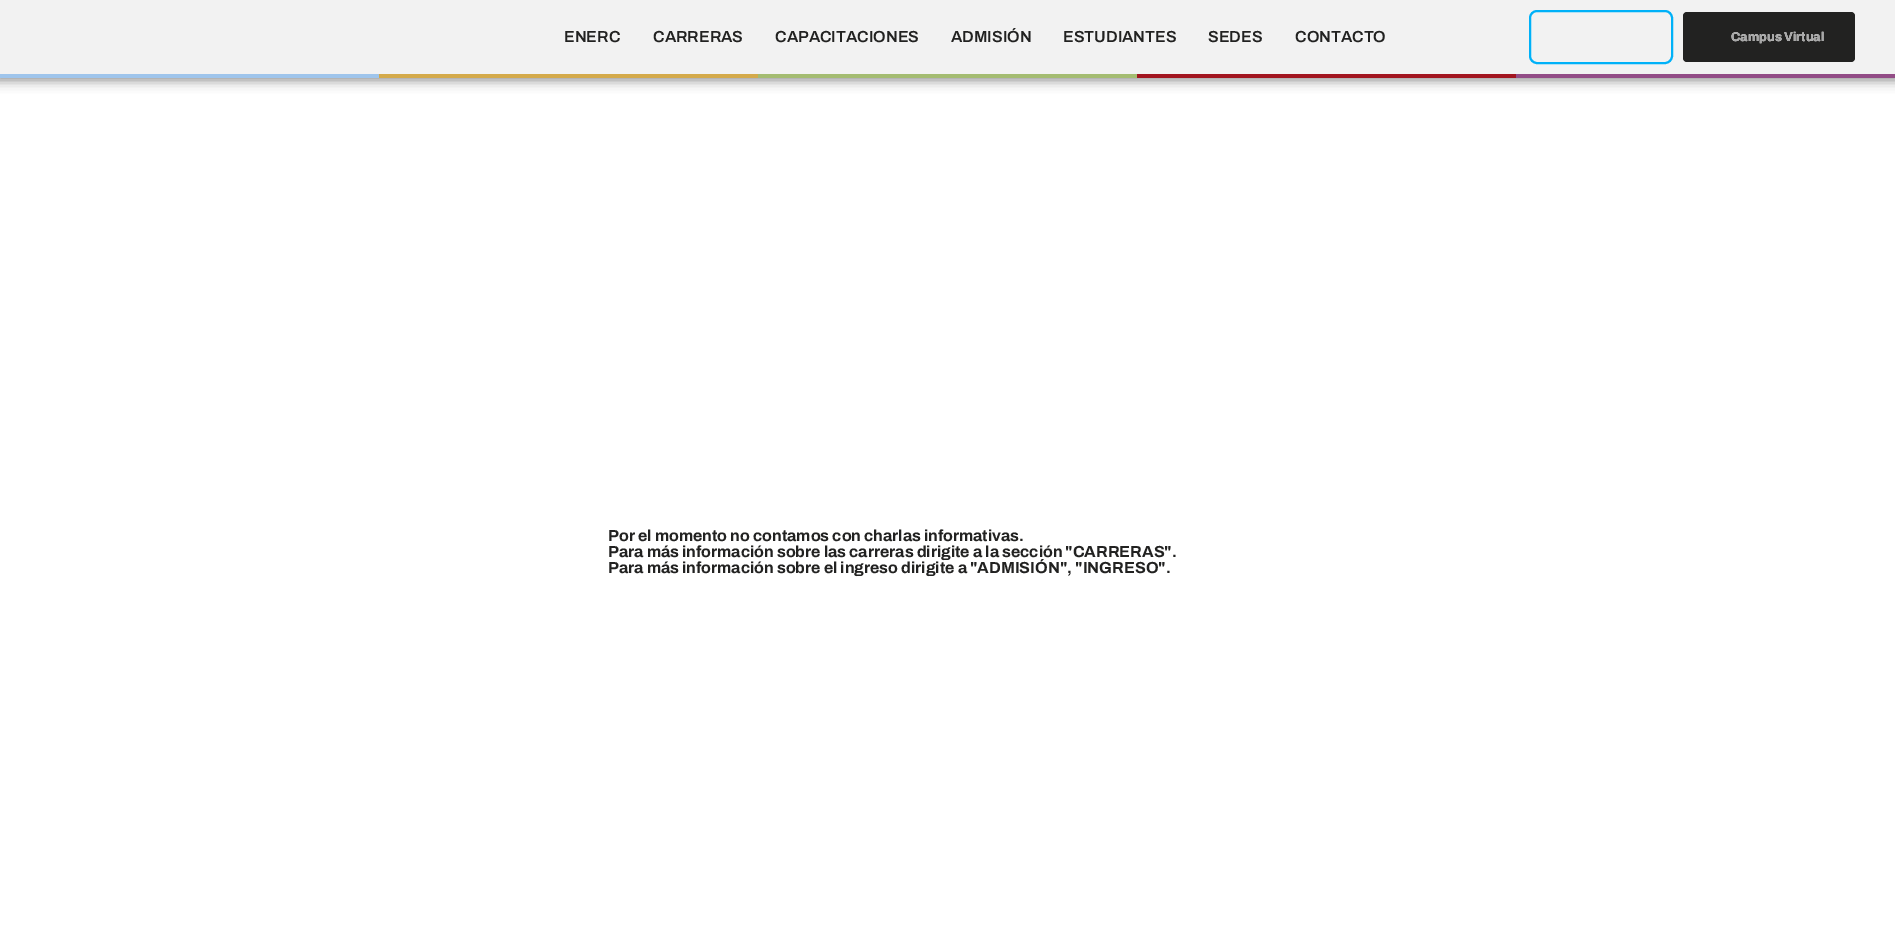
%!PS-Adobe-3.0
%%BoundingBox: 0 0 1895 947
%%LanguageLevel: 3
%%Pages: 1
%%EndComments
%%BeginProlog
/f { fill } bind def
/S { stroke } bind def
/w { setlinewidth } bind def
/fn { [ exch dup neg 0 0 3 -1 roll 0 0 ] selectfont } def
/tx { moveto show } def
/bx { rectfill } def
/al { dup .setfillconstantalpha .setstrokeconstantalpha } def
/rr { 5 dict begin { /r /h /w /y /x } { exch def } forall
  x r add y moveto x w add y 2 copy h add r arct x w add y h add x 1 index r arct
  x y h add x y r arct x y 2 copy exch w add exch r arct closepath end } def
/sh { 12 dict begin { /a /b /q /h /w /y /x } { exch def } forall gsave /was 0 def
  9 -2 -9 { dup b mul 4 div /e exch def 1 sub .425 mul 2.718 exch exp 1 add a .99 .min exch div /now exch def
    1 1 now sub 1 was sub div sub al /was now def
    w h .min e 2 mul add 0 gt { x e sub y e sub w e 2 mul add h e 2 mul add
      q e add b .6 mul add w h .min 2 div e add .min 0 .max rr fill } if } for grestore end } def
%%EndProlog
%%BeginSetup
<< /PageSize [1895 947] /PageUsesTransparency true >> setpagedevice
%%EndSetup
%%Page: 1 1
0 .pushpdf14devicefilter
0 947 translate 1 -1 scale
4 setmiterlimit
1 setgray
0 0 1895 947 bx
0 setgray
-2 -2 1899 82 0 6 0.48 sh
0.949 setgray
0 0 1895 74 bx
/Archivo-SemiBold 16 fn
0.133 0.133 0.129 setrgbcolor
(ENERC) 564 42 tx
(CARRERAS) 653 42 tx
(CAPACITACIONES) 775 42 tx
(ADMISIÓN) 951 42 tx
(ESTUDIANTES) 1063 42 tx
(SEDES) 1208 42 tx
(CONTACTO) 1295 42 tx
0 0.694 0.973 setrgbcolor
2 w
1530 11 142 52 7 rr S
0.133 0.133 0.129 setrgbcolor
1683 12 172 50 4 rr f
/Archivo-Bold 12.75 fn
1 setgray
(Campus Virtual) 1731 41 tx
0.655 setgray
(Campus Virtual) 1731 41 tx
0.624 0.773 0.925 setrgbcolor
0 74 379 4 bx
0.831 0.667 0.294 setrgbcolor
379 74 379 4 bx
0.643 0.737 0.443 setrgbcolor
758 74 379 4 bx
0.635 0.082 0.122 setrgbcolor
1137 74 379 4 bx
0.573 0.298 0.525 setrgbcolor
1516 74 379 4 bx
/Archivo-Bold 16 fn
0.133 0.133 0.129 setrgbcolor
(Por el momento no contamos con charlas informativas.) 608 541 tx
(Para más información sobre las carreras dirigite a la sección "CARRERAS".) 608 557 tx
(Para más información sobre el ingreso dirigite a "ADMISIÓN", "INGRESO".) 608 573 tx
.poppdf14devicefilter showpage
%%EOF
